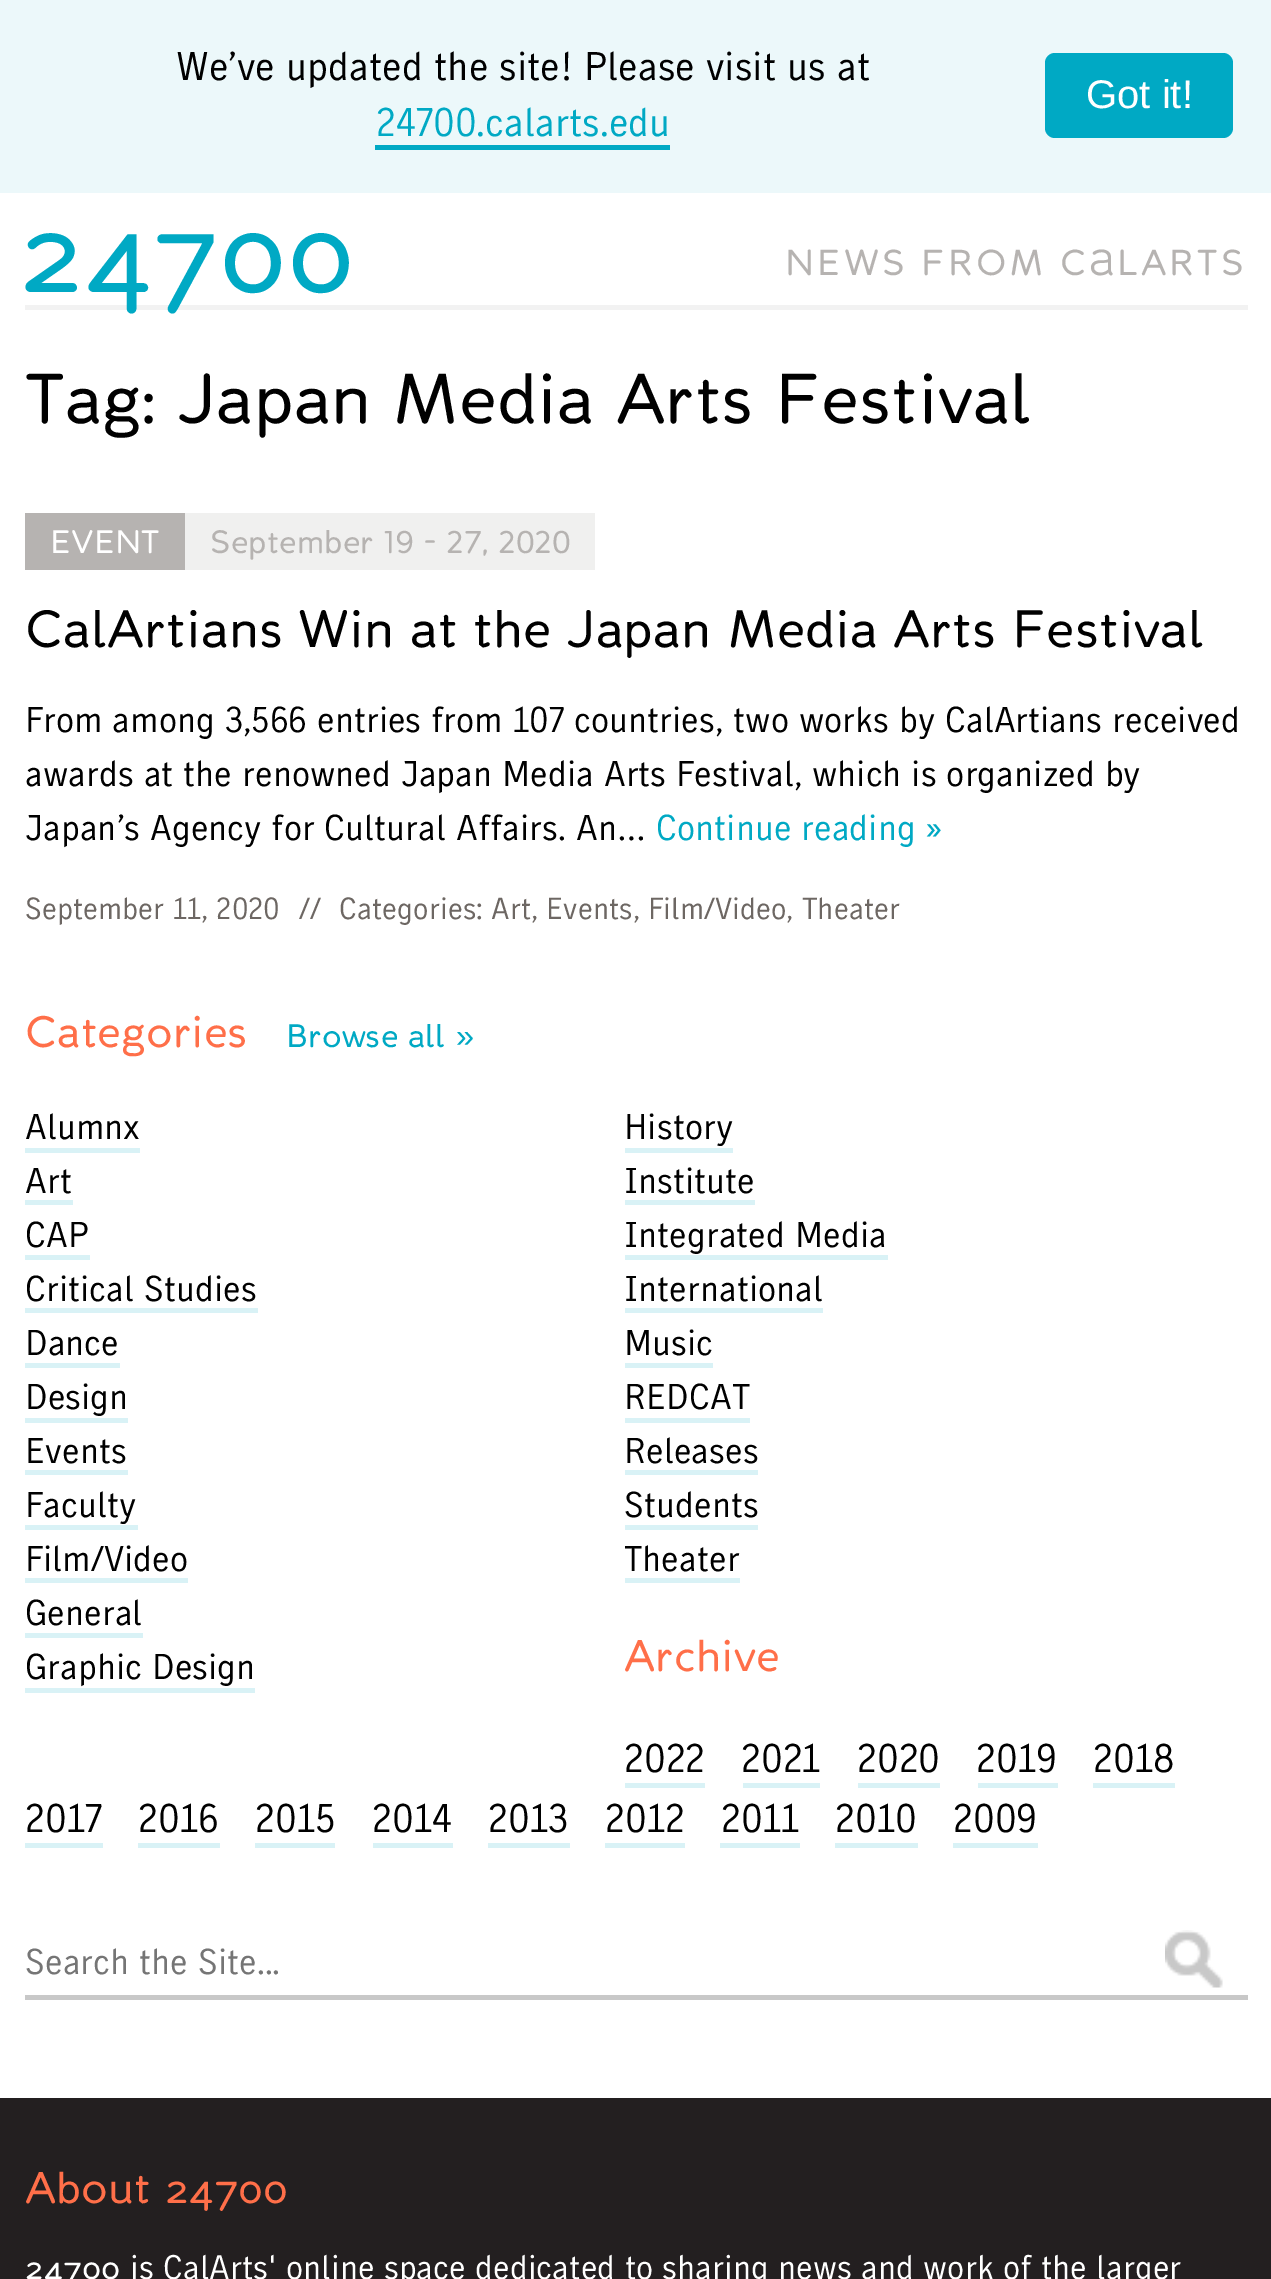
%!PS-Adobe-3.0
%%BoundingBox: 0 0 1271 2279
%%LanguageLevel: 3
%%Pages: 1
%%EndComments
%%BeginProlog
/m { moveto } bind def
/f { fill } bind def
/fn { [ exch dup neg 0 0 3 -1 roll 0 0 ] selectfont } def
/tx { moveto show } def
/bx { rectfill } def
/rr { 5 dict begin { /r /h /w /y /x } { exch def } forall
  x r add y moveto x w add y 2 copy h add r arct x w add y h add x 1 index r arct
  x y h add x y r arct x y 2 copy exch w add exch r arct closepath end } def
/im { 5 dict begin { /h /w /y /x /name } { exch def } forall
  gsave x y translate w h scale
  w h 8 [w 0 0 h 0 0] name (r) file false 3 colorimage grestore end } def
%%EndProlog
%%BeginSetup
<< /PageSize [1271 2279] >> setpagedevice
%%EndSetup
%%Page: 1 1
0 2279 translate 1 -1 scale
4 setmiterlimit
1 setgray
0 0 1271 2279 bx
0.925 0.973 0.98 setrgbcolor
0 0 1271 193 bx
/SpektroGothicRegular-Regular 40 fn
0 setgray
(We’ve updated the site! Please visit us at) 176 80 tx
0 0.663 0.769 setrgbcolor
(24700.calarts.edu) 376 136 tx
375 145 295 5 bx
1045 53 188 85 10 rr f
/LiberationSans-Regular 40 fn
1 setgray
(Got it!) 1086 108 tx
0.949 setgray
25 305 1223 5 bx
/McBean-Regular 120 fn
0 0.663 0.769 setrgbcolor
(24700) 19 292 tx
/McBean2-Regular 36 fn
0.714 0.702 0.694 setrgbcolor
785 275 m 2.9 0 (NEWS FROM C) ashow
/McBean-Regular 36 fn
1089 275 m 2.9 0 (A) ashow
/McBean2-Regular 36 fn
1117 275 m 2.9 0 (LARTS) ashow
/McBean2-Regular 70 fn
0 setgray
(Tag: Japan Media Arts Festival) 25 423 tx
0.714 0.702 0.694 setrgbcolor
25 513 160 57 bx
/McBean2-Regular 32.4 fn
1 setgray
(EVENT) 50 553 tx
0.941 0.941 0.937 setrgbcolor
185 513 410 57 bx
0.714 0.702 0.694 setrgbcolor
(September 19 - 27, 2020) 210 553 tx
/McBean2-Regular 52.2 fn
0 setgray
(CalArtians Win at the Japan Media Arts Festival) 25 647 tx
/SpektroGothicRegular-Regular 36 fn
(From among 3,566 entries from 107 countries, two works by CalArtians received) 25 732 tx
(awards at the renowned Japan Media Arts Festival, which is organized by) 25 786 tx
(Japan’s Agency for Cultural Affairs. An…) 25 840 tx
0 0.663 0.769 setrgbcolor
(Continue reading ») 656 840 tx
/SpektroGothicRegular-Regular 30.6 fn
0.427 0.404 0.388 setrgbcolor
(September 11, 2020) 25 919 tx
(//) 299 919 tx
(Categories: Art, Events, Film/Video, Theater) 339 919 tx
/McBean2-Regular 44 fn
1 0.435 0.286 setrgbcolor
(Categories) 25 1047 tx
/McBean2-Regular 32.5 fn
0 0.663 0.769 setrgbcolor
(Browse all) 286 1047 tx
/LiberationSans-Regular 32.5 fn
(») 456 1047 tx
/SpektroGothicRegular-Regular 36 fn
0 setgray
(Alumnx) 25 1139 tx
0.851 0.949 0.965 setrgbcolor
25 1148 115 5 bx
0 setgray
(Art) 25 1193 tx
0.851 0.949 0.965 setrgbcolor
25 1200 48 5 bx
0 setgray
(CAP) 25 1247 tx
0.851 0.949 0.965 setrgbcolor
25 1255 65 5 bx
0 setgray
(Critical Studies) 25 1301 tx
0.851 0.949 0.965 setrgbcolor
25 1308 233 5 bx
0 setgray
(Dance) 25 1355 tx
0.851 0.949 0.965 setrgbcolor
25 1363 95 5 bx
0 setgray
(Design) 25 1409 tx
0.851 0.949 0.965 setrgbcolor
25 1418 103 5 bx
0 setgray
(Events) 25 1463 tx
0.851 0.949 0.965 setrgbcolor
25 1470 103 5 bx
0 setgray
(Faculty) 25 1517 tx
0.851 0.949 0.965 setrgbcolor
25 1525 113 5 bx
0 setgray
(Film/Video) 25 1571 tx
0.851 0.949 0.965 setrgbcolor
25 1578 163 5 bx
0 setgray
(General) 25 1625 tx
0.851 0.949 0.965 setrgbcolor
25 1633 118 5 bx
0 setgray
(Graphic Design) 25 1679 tx
0.851 0.949 0.965 setrgbcolor
25 1688 230 5 bx
0 setgray
(History) 624 1139 tx
0.851 0.949 0.965 setrgbcolor
625 1148 108 5 bx
0 setgray
(Institute) 624 1193 tx
0.851 0.949 0.965 setrgbcolor
625 1200 130 5 bx
0 setgray
(Integrated Media) 624 1247 tx
0.851 0.949 0.965 setrgbcolor
625 1255 263 5 bx
0 setgray
(International) 624 1301 tx
0.851 0.949 0.965 setrgbcolor
625 1308 198 5 bx
0 setgray
(Music) 624 1355 tx
0.851 0.949 0.965 setrgbcolor
625 1363 88 5 bx
0 setgray
(REDCAT) 624 1409 tx
0.851 0.949 0.965 setrgbcolor
625 1418 125 5 bx
0 setgray
(Releases) 624 1463 tx
0.851 0.949 0.965 setrgbcolor
625 1470 133 5 bx
0 setgray
(Students) 624 1517 tx
0.851 0.949 0.965 setrgbcolor
625 1525 133 5 bx
0 setgray
(Theater) 624 1571 tx
0.851 0.949 0.965 setrgbcolor
625 1578 115 5 bx
/McBean2-Regular 44 fn
1 0.435 0.286 setrgbcolor
(Archive) 624 1671 tx
/SpektroGothicRegular-Regular 40 fn
0 setgray
(2022) 624 1772 tx
0.851 0.949 0.965 setrgbcolor
625 1783 80 5 bx
0 setgray
(2021) 741 1772 tx
0.851 0.949 0.965 setrgbcolor
743 1783 77 5 bx
0 setgray
(2020) 857 1772 tx
0.851 0.949 0.965 setrgbcolor
858 1783 82 5 bx
0 setgray
(2019) 976 1772 tx
0.851 0.949 0.965 setrgbcolor
978 1783 80 5 bx
0 setgray
(2018) 1093 1772 tx
0.851 0.949 0.965 setrgbcolor
1093 1783 82 5 bx
0 setgray
(2017) 25 1832 tx
0.851 0.949 0.965 setrgbcolor
25 1843 78 5 bx
0 setgray
(2016) 138 1832 tx
0.851 0.949 0.965 setrgbcolor
138 1843 82 5 bx
0 setgray
(2015) 255 1832 tx
0.851 0.949 0.965 setrgbcolor
255 1843 80 5 bx
0 setgray
(2014) 372 1832 tx
0.851 0.949 0.965 setrgbcolor
373 1843 80 5 bx
0 setgray
(2013) 488 1832 tx
0.851 0.949 0.965 setrgbcolor
488 1843 82 5 bx
0 setgray
(2012) 605 1832 tx
0.851 0.949 0.965 setrgbcolor
605 1843 80 5 bx
0 setgray
(2011) 721 1832 tx
0.851 0.949 0.965 setrgbcolor
720 1843 80 5 bx
0 setgray
(2010) 835 1832 tx
0.851 0.949 0.965 setrgbcolor
835 1843 83 5 bx
0 setgray
(2009) 953 1832 tx
0.851 0.949 0.965 setrgbcolor
953 1843 85 5 bx
0.784 setgray
25 1995 1223 5 bx
/SpektroGothicRegular-Regular 36 fn
0.459 setgray
(Search the Site...) 25 1974 tx
(image0.raw) 1165 1930 58 58 im
0.137 0.122 0.125 setrgbcolor
0 2098 1271 181 bx
/McBean2-Regular 44 fn
1 0.435 0.286 setrgbcolor
(About) 25 2203 tx
/McBean-Regular 44 fn
(24700) 165 2203 tx
/McBean-Regular 34 fn
1 setgray
(24700) 25 2279 tx
/SpektroGothicRegular-Regular 34 fn
(is CalArts' online space dedicated to sharing news and work of the larger) 130 2279 tx
showpage
%%EOF
